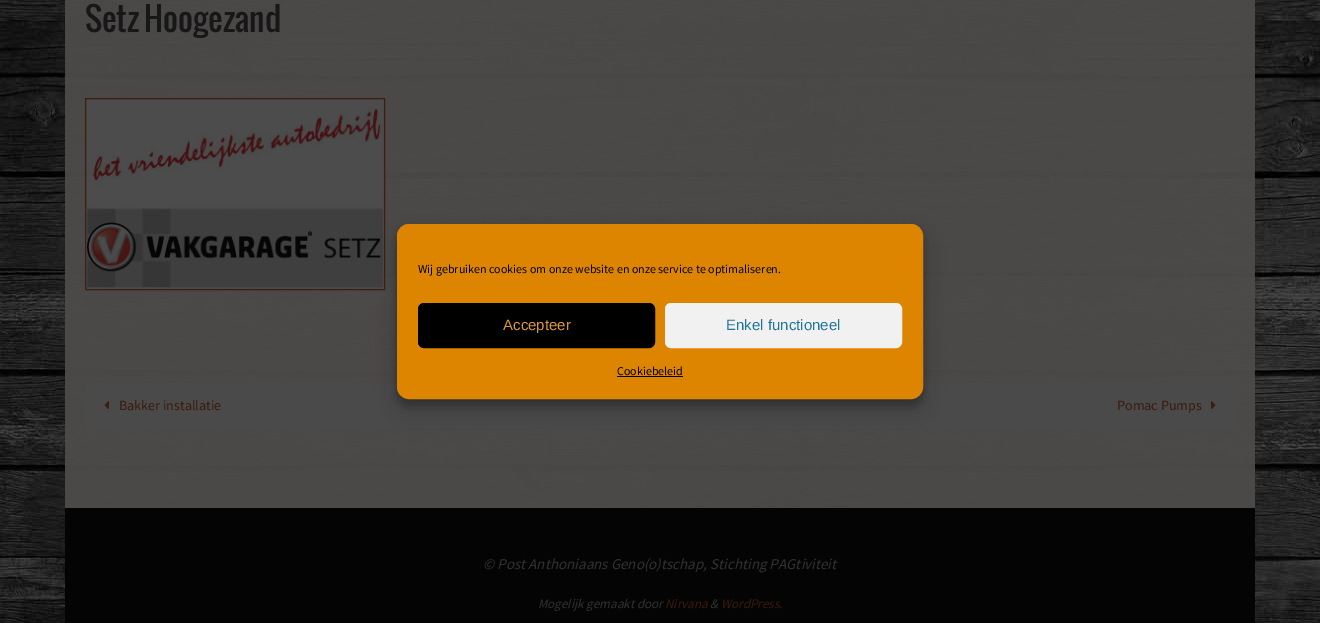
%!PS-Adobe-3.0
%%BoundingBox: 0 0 1320 623
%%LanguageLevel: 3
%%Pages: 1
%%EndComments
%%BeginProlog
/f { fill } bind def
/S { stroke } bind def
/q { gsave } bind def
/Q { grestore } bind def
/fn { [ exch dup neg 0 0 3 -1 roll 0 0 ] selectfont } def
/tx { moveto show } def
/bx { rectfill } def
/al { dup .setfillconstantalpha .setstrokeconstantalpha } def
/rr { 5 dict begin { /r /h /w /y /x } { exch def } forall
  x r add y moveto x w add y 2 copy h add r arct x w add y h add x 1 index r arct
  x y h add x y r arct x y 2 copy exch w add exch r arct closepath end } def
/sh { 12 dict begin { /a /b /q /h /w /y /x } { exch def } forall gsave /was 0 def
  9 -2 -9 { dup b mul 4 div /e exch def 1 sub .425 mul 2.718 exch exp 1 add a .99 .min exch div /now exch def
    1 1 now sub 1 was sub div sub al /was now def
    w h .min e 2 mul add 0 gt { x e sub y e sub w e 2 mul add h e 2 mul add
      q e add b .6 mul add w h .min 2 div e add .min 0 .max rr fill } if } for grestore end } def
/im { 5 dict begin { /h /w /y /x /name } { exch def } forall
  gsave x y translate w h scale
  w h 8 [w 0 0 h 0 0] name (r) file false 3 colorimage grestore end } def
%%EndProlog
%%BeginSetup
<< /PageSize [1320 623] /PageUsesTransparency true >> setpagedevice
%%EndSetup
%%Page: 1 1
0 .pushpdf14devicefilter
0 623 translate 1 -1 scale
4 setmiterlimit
1 setgray
0 0 1320 623 bx
(image0.raw) 0 0 1320 623 im
/Oswald-Regular 32 fn
0.09 setgray
(Setz Hoogezand) 85 32 tx
0.95 al
0.278 setgray
85 44 1150 1 bx
85 59 1150 1 bx
0.94 al
0.239 0.106 0.039 setrgbcolor
85.5 98.5 299 191 rectstroke
1 al
(image1.raw) 87 100 296 188 im
0.95 al
0.29 setgray
85 383 575 45 bx
1 al
(image2.raw) 104 401 5 9 im
/SourceSansPro-Regular 14 fn
0.227 0.102 0.035 setrgbcolor
(Bakker installatie) 119 410 tx
0.95 al
0.29 setgray
660 383 575 45 bx
1 al
0.227 0.102 0.035 setrgbcolor
(Pomac Pumps) 1117 410 tx
(image3.raw) 1211 401 5 9 im
0.016 setgray
65 508 1190 115 bx
/SourceSansPro-Italic 15 fn
0.192 setgray
(© Post Anthoniaans Geno\(o\)tschap, Stichting PAGtiviteit) 483 569 tx
/SourceSansPro-Italic 13 fn
(Mogelijk gemaakt door) 538 608 tx
0.227 0.102 0.035 setrgbcolor
(Nirvana) 665 608 tx
0.192 setgray
(&) 710 608 tx
0.227 0.102 0.035 setrgbcolor
(WordPress.) 721 608 tx
0 setgray
397 230 526 175 12 3 0.23 sh
397 234 526 175 12 10 0.19 sh
0.867 0.522 0 setrgbcolor
397.5 224.5 525 174 11.5 rr q f Q
S
/SourceSansPro-Regular 12 fn
0 setgray
(Wij gebruiken cookies om onze website en onze service te optimaliseren.) 418 273 tx
418.5 303.5 236 44 5.5 rr q f Q
S
/LiberationSans-Regular 15 fn
0.867 0.6 0.2 setrgbcolor
(Accepteer) 503 330 tx
0.945 setgray
665.5 303.5 236 44 5.5 rr q f Q
S
0.129 0.459 0.608 setrgbcolor
(Enkel functioneel) 726 330 tx
/SourceSansPro-Regular 12 fn
0 setgray
(Cookiebeleid) 617 375 tx
617 376 66 1 bx
.poppdf14devicefilter showpage
%%EOF
